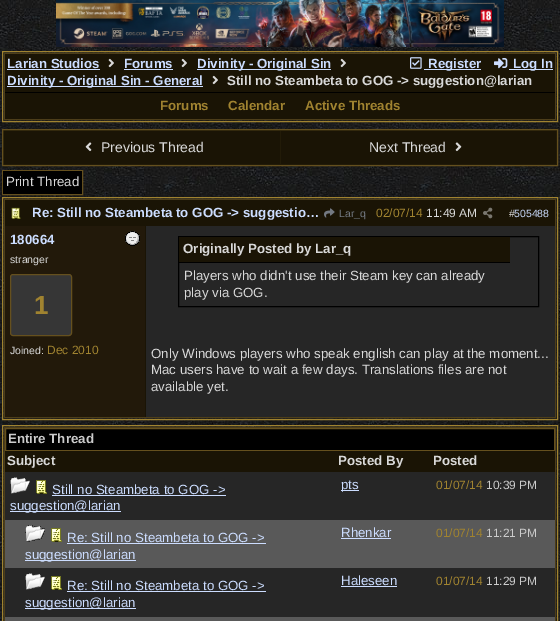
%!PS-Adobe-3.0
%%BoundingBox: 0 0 560 621
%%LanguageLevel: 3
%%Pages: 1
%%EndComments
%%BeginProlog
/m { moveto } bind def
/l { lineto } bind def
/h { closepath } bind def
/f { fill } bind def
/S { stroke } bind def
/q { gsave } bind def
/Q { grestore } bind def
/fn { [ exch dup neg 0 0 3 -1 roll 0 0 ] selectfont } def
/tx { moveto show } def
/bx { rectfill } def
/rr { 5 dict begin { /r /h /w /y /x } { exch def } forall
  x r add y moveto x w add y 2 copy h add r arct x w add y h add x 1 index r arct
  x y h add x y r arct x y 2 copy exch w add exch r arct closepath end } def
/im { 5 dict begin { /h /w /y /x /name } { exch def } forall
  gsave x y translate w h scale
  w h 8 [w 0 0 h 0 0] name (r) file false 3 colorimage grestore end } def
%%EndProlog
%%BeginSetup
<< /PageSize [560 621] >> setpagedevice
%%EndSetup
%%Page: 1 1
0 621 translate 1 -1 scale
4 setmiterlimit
1 setgray
0 0 560 621 bx
(image0.raw) 0 0 560 621 im
(image1.raw) 56 0 448 47 im
0.627 0.514 0.188 setrgbcolor
2.5 51.5 555 70 rectstroke
0.302 0.243 0.102 setrgbcolor
4.5 53.5 551 66 rectstroke
0.102 0.078 0.02 setrgbcolor
5 54 550 38 bx
/LiberationSans-Bold 13.3 fn
0.8 0.867 1 setrgbcolor
(Larian Studios) 7 68 tx
7 69 93 1 bx
(image2.raw) 108 58 6 10 im
(Forums) 124 68 tx
124 69 49 1 bx
(image2.raw) 181 58 6 10 im
197 69 134 1 bx
(Divinity - Original Sin) 197 68 tx
(image2.raw) 340 58 6 10 im
7 86 196 1 bx
(Divinity - Original Sin - General) 7 85 tx
(image2.raw) 212 75 6 10 im
0.851 setgray
(Still no Steambeta to GOG -> suggestion@larian) 227 85 tx
(image3.raw) 410 57 12 12 im
0.8 0.867 1 setrgbcolor
424 69 57 1 bx
(Register) 428 68 tx
(image4.raw) 494 58 14 11 im
509 69 44 1 bx
(Log In) 513 68 tx
0.102 0.078 0.02 setrgbcolor
5 93 550 26 bx
0 setgray
5 92 550 1 bx
0.627 0.514 0.188 setrgbcolor
(Forums) 160 110 tx
(Calendar) 228 110 tx
(Active Threads) 305 110 tx
0.133 0.106 0.031 setrgbcolor
2.5 129.5 m 557.5 129.5 l 557.5 165.5 l 2.5 165.5 l h q f Q
0.396 0.314 0.118 setrgbcolor
S
0.102 0.078 0.02 setrgbcolor
4 131 276 33 bx
(image5.raw) 85 142 7 10 im
/LiberationSans-Regular 14 fn
0.851 setgray
(Previous Thread) 101 152 tx
0.102 0.078 0.02 setrgbcolor
281 131 275 33 bx
0.851 setgray
(Next Thread) 369 152 tx
(image6.raw) 455 142 7 10 im
0.396 0.314 0.118 setrgbcolor
2.5 170.5 80 24 rectstroke
0 setgray
3 171 79 23 bx
/LiberationSans-Regular 13.3 fn
0.851 setgray
(Print Thread) 6 186 tx
0.627 0.514 0.188 setrgbcolor
2.5 197.5 555 222 rectstroke
0.302 0.243 0.102 setrgbcolor
4.5 199.5 551 218 rectstroke
0.102 0.078 0.02 setrgbcolor
5 200 550 26 bx
(image7.raw) 11 207 10 12 im
/LiberationSans-Bold 13.3 fn
0.8 0.867 1 setrgbcolor
(Re: Still no Steambeta to GOG -> suggestio…) 32 217 tx
(image8.raw) 324 208 11 10 im
/LiberationSans-Regular 10.5 fn
0.451 0.475 0.51 setrgbcolor
(Lar_q) 339 217 tx
/LiberationSans-Regular 12 fn
0.627 0.514 0.188 setrgbcolor
(02/07/14) 376 217 tx
0.851 setgray
(11:49 AM) 426 217 tx
(image9.raw) 483 207 10 12 im
/LiberationSans-Regular 10.5 fn
(#) 509 217 tx
0.8 0.867 1 setrgbcolor
(505488) 514 217 tx
0.133 0.098 0.039 setrgbcolor
5 226 140 191 bx
/LiberationSans-Bold 13.3 fn
0.8 0.867 1 setrgbcolor
(180664) 10 244 tx
(image10.raw) 125 231 15 15 im
/LiberationSans-Regular 10.5 fn
0.851 setgray
(stranger) 10 263 tx
0.212 setgray
10.5 274.5 61 61 2.5 rr q f Q
0.396 0.314 0.118 setrgbcolor
S
/LiberationSans-Bold 26 fn
0.627 0.514 0.188 setrgbcolor
(1) 34 314 tx
/LiberationSans-Regular 10.5 fn
0.851 setgray
(Joined:) 10 354 tx
/LiberationSans-Regular 12 fn
0.627 0.514 0.188 setrgbcolor
(Dec 2010) 47 354 tx
0.149 setgray
146 226 409 191 bx
0.102 0.078 0.02 setrgbcolor
145 226 1 191 bx
0 setgray
178.5 236.5 360 70 rectstroke
0.102 0.078 0.02 setrgbcolor
179 237 331 25 bx
0 setgray
179 262 331 1 bx
/LiberationSans-Bold 13.3 fn
0.851 setgray
(Originally Posted by Lar_q) 183 253 tx
/LiberationSans-Regular 13.3 fn
(Players who didn't use their Steam key can already) 184 280 tx
(play via GOG.) 184 297 tx
(Only Windows players who speak english can play at the moment...) 151 358 tx
(Mac users have to wait a few days. Translations files are not) 151 374 tx
(available yet.) 151 391 tx
0.627 0.514 0.188 setrgbcolor
2.5 425.5 555 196 rectstroke
0 setgray
6 429 548 21 bx
0.302 0.243 0.102 setrgbcolor
4.5 427.5 551 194 rectstroke
0.396 0.314 0.118 setrgbcolor
5.5 428.5 549 22 rectstroke
/LiberationSans-Bold 13.3 fn
0.8 setgray
(Entire Thread) 8 443 tx
0.102 0.078 0.02 setrgbcolor
5 451 550 21 bx
0.851 setgray
(Subject) 7 465 tx
(Posted By) 338 465 tx
(Posted) 433 465 tx
0.149 setgray
5 472 550 48 bx
(image11.raw) 10 477 20 17 im
(image12.raw) 36 480 11 14 im
/LiberationSans-Regular 13.3 fn
0.8 0.867 1 setrgbcolor
(Still no Steambeta to GOG ->) 52 494 tx
52 495 174 1 bx
10 511 111 1 bx
(suggestion@larian) 10 510 tx
341 490 18 1 bx
(pts) 341 489 tx
/LiberationSans-Regular 12 fn
0.627 0.514 0.188 setrgbcolor
(01/07/14) 436 489 tx
0.8 setgray
(10:39 PM) 486 489 tx
0.349 setgray
5 520 550 48 bx
(image13.raw) 25 525 20 17 im
(image14.raw) 51 528 11 14 im
/LiberationSans-Regular 13.3 fn
0.8 0.867 1 setrgbcolor
(Re: Still no Steambeta to GOG ->) 67 542 tx
67 543 199 1 bx
25 560 111 1 bx
(suggestion@larian) 25 559 tx
(Rhenkar) 341 537 tx
341 538 50 1 bx
/LiberationSans-Regular 12 fn
0.627 0.514 0.188 setrgbcolor
(01/07/14) 436 537 tx
0.8 setgray
(11:21 PM) 486 537 tx
0.149 setgray
5 568 550 49 bx
(image11.raw) 25 573 20 17 im
(image12.raw) 51 576 11 14 im
/LiberationSans-Regular 13.3 fn
0.8 0.867 1 setrgbcolor
(Re: Still no Steambeta to GOG ->) 67 590 tx
67 591 199 1 bx
25 608 111 1 bx
(suggestion@larian) 25 607 tx
(Haleseen) 341 585 tx
341 586 56 1 bx
/LiberationSans-Regular 12 fn
0.627 0.514 0.188 setrgbcolor
(01/07/14) 436 585 tx
0.8 setgray
(11:29 PM) 486 585 tx
0.349 setgray
5 617 550 4 bx
showpage
%%EOF
